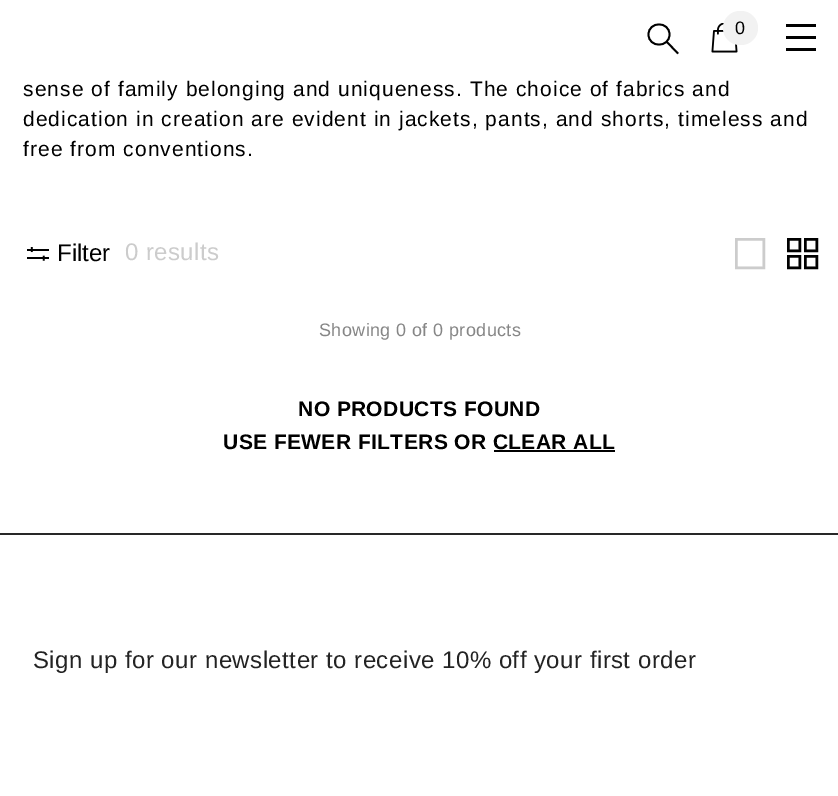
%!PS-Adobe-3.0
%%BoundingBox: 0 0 838 796
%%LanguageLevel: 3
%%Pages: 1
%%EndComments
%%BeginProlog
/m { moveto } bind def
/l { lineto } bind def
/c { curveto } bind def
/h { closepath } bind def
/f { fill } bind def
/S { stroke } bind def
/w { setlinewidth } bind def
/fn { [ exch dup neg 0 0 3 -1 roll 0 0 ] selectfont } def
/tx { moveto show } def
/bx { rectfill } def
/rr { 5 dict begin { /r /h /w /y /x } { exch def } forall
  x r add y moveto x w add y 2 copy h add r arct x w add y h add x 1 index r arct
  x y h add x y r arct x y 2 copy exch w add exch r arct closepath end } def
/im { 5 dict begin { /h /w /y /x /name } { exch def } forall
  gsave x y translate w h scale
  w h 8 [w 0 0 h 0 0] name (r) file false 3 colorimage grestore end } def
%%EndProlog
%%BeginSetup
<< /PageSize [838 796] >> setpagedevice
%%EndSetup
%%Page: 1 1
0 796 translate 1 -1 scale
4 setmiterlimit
1 setgray
0 0 838 796 bx
0 setgray
1.8 w
648.5 34.5 m 648.5 21 669.5 21 669.5 34.5 c 669.5 48 648.5 48 648.5 34.5 c h 678 53.5 m 666 41 l S
(image0.raw) 711 23 27 30 im
0.949 setgray
723 11 35 34 17 rr f
/LiberationSans-Regular 18 fn
0 setgray
(0) 735 34 tx
786 36 30 3 bx
786 24 30 3 bx
786 48 30 3 bx
/LiberationSans-Regular 21 fn
23 96 m 1.05 0 (sense of family belonging and uniqueness. The choice of fabrics and) ashow
23 126 m 1.05 0 (dedication in creation are evident in jackets, pants, and shorts, timeless and) ashow
23 156 m 1.05 0 (free from conventions.) ashow
(image1.raw) 27 247 22 14 im
/LiberationSans-Regular 24 fn
(Filter) 57 261 tx
0.8 setgray
125 260 m 0.4 0 (0 results) ashow
2.5 w
736.25 239.25 27.5 28.5 rectstroke
0 setgray
788.25 239.25 11.5 11.5 rectstroke
805.25 239.25 11.5 11.5 rectstroke
788.25 256.25 11.5 11.5 rectstroke
805.25 256.25 11.5 11.5 rectstroke
/LiberationSans-Regular 18 fn
0.525 setgray
319 336 m 0.4 0 (Showing 0 of 0 products) ashow
/LiberationSans-Bold 21 fn
0 setgray
298 416 m 0.4 0 (NO PRODUCTS FOUND) ashow
223 449 m 0.4 0 (USE FEWER FILTERS OR CLEAR ALL) ashow
494 450 121 2 bx
0.157 setgray
0 533 838 2 bx
/LiberationSans-Regular 24 fn
0.137 setgray
33 668 m 0.48 0 (Sign up for our newsletter to receive 10% off your first order) ashow
showpage
%%EOF
